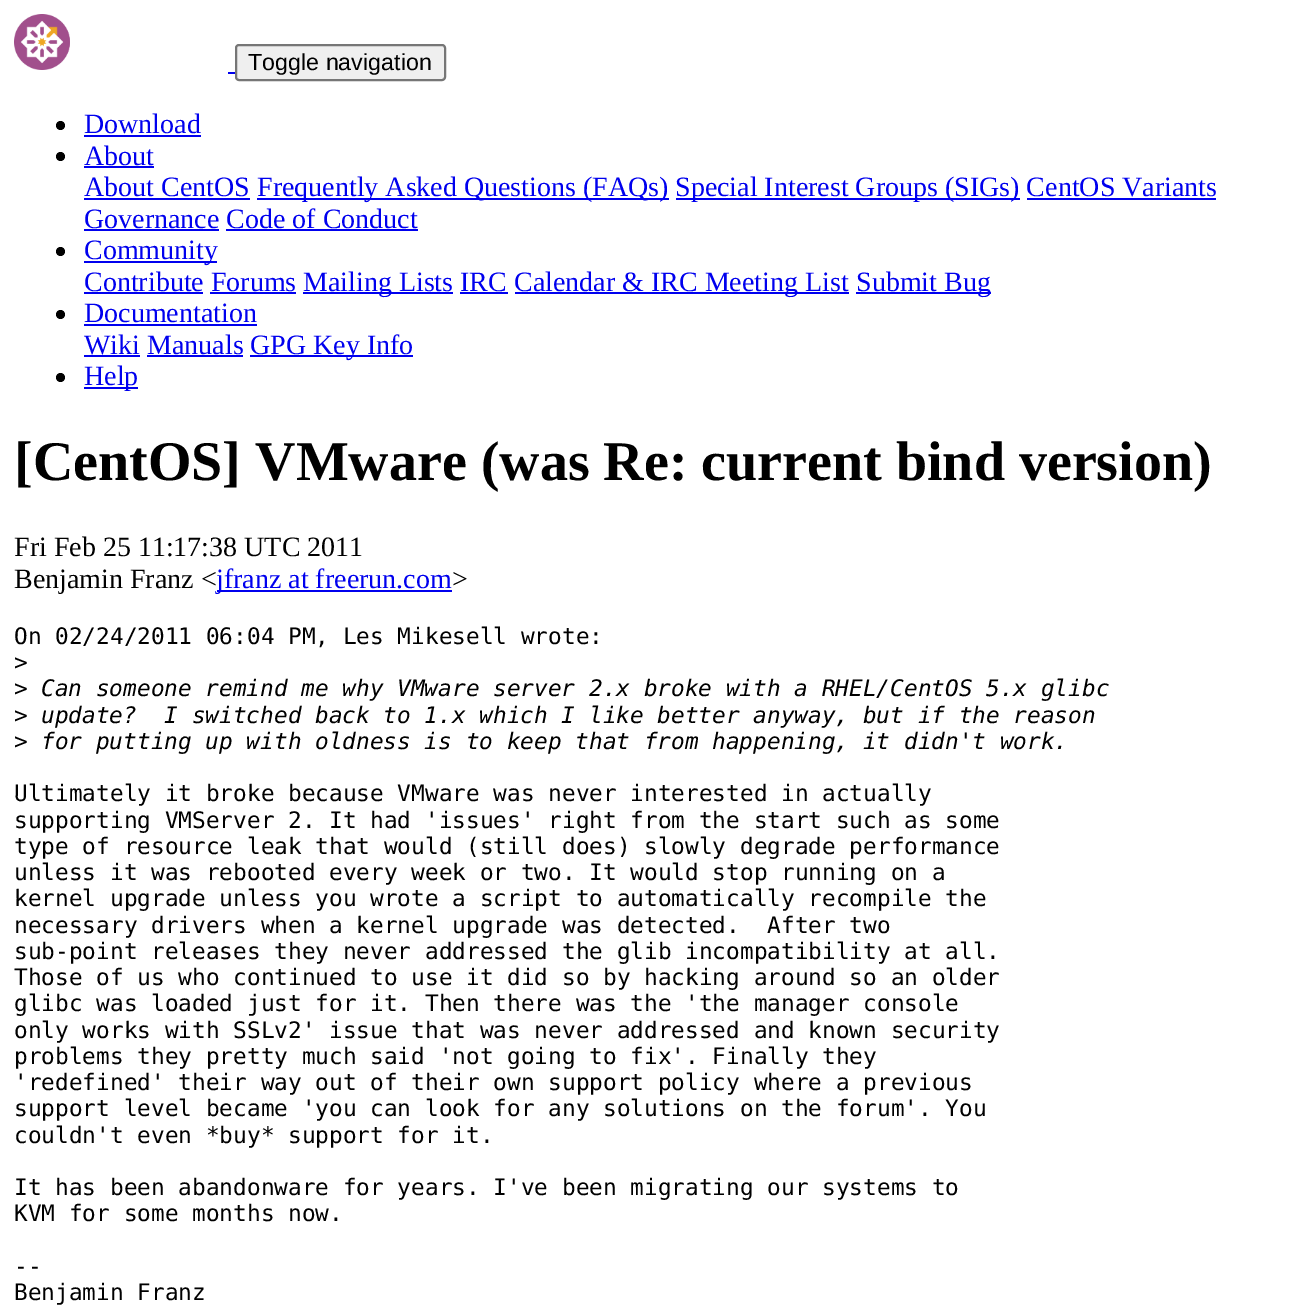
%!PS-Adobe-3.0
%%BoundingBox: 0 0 1314 1311
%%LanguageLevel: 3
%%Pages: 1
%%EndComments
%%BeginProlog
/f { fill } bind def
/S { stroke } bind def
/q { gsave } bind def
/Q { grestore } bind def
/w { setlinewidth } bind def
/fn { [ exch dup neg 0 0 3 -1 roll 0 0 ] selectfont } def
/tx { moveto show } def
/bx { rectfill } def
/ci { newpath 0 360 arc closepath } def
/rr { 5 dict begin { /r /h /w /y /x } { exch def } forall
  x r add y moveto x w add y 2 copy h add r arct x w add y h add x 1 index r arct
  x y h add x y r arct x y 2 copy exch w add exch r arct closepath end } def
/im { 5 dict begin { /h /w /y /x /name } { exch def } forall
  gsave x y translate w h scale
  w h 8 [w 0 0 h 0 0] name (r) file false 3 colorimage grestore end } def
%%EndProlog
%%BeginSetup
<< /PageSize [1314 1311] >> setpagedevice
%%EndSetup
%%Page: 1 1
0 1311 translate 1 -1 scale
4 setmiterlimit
1 setgray
0 0 1314 1311 bx
(image0.raw) 14 14 56 56 im
0 0 0.933 setrgbcolor
228 72 7 2 bx
0.937 setgray
236 45 209 35 3 rr q f Q
0.463 setgray
2 w
S
/LiberationSans-Regular 23.25 fn
0 setgray
(Toggle navigation) 248 70 tx
60.5 125.5 4.5 ci f
/LiberationSerif-Regular 28 fn
0 0 0.933 setrgbcolor
(Download) 84 133 tx
84 135 117 2 bx
0 setgray
60.5 156.5 4.5 ci f
0 0 0.933 setrgbcolor
(About) 84 165 tx
84 166 70 2 bx
(About CentOS) 84 196 tx
84 198 166 2 bx
257 198 412 2 bx
(Frequently Asked Questions \(FAQs\)) 257 196 tx
676 198 344 2 bx
(Special Interest Groups \(SIGs\) CentOS Variants) 675 196 tx
1027 198 189 2 bx
(Governance Code of Conduct) 84 228 tx
84 229 135 2 bx
226 229 192 2 bx
0 setgray
60.5 251.5 4.5 ci f
0 0 0.933 setrgbcolor
84 261 133 2 bx
(Community) 84 259 tx
(Contribute Forums) 84 291 tx
84 292 119 2 bx
303 292 150 2 bx
(Mailing Lists IRC) 303 291 tx
515 292 334 2 bx
(Calendar & IRC Meeting List) 514 291 tx
856 292 135 2 bx
(Submit Bug) 856 291 tx
210 292 86 2 bx
460 292 48 2 bx
0 setgray
60.5 314.5 4.5 ci f
0 0 0.933 setrgbcolor
(Documentation) 84 322 tx
84 324 173 2 bx
(Wiki Manuals) 84 354 tx
84 355 56 2 bx
250 355 163 2 bx
(GPG Key Info) 250 354 tx
147 355 96 2 bx
0 setgray
60.5 377.5 4.5 ci f
0 0 0.933 setrgbcolor
84 387 54 2 bx
(Help) 84 385 tx
/LiberationSerif-Bold 56 fn
0 setgray
([CentOS] VMware \(was Re: current bind version\)) 14 480 tx
/LiberationSerif-Regular 28 fn
(Fri Feb 25 11:17:38 UTC 2011) 14 556 tx
(Benjamin Franz <) 14 588 tx
0 0 0.933 setrgbcolor
217 590 235 2 bx
(jfranz at freerun.com) 216 588 tx
0 setgray
(>) 452 588 tx
/DejaVuSansMono-Regular 22.75 fn
(On 02/24/2011 06:04 PM, Les Mikesell wrote:) 14 644 tx
(>) 14 670 tx
(>) 14 696 tx
/DejaVuSansMono-Italic 22.75 fn
(Can someone remind me why VMware server 2.x broke with a RHEL/CentOS 5.x glibc) 41 696 tx
/DejaVuSansMono-Regular 22.75 fn
(>) 14 723 tx
/DejaVuSansMono-Italic 22.75 fn
(update?  I switched back to 1.x which I like better anyway, but if the reason) 41 723 tx
/DejaVuSansMono-Regular 22.75 fn
(>) 14 749 tx
/DejaVuSansMono-Italic 22.75 fn
(for putting up with oldness is to keep that from happening, it didn't work.) 41 749 tx
/DejaVuSansMono-Regular 22.75 fn
(Ultimately it broke because VMware was never interested in actually) 14 801 tx
(supporting VMServer 2. It had 'issues' right from the start such as some) 14 828 tx
(type of resource leak that would \(still does\) slowly degrade performance) 14 854 tx
(unless it was rebooted every week or two. It would stop running on a) 14 880 tx
(kernel upgrade unless you wrote a script to automatically recompile the) 14 906 tx
(necessary drivers when a kernel upgrade was detected.  After two) 14 933 tx
(sub-point releases they never addressed the glib incompatibility at all.) 14 959 tx
(Those of us who continued to use it did so by hacking around so an older) 14 985 tx
(glibc was loaded just for it. Then there was the 'the manager console) 14 1011 tx
(only works with SSLv2' issue that was never addressed and known security) 14 1038 tx
(problems they pretty much said 'not going to fix'. Finally they) 14 1064 tx
('redefined' their way out of their own support policy where a previous) 14 1090 tx
(support level became 'you can look for any solutions on the forum'. You) 14 1116 tx
(couldn't even *buy* support for it.) 14 1143 tx
(It has been abandonware for years. I've been migrating our systems to) 14 1195 tx
(KVM for some months now.) 14 1221 tx
(--) 14 1274 tx
(Benjamin Franz) 14 1300 tx
showpage
%%EOF
